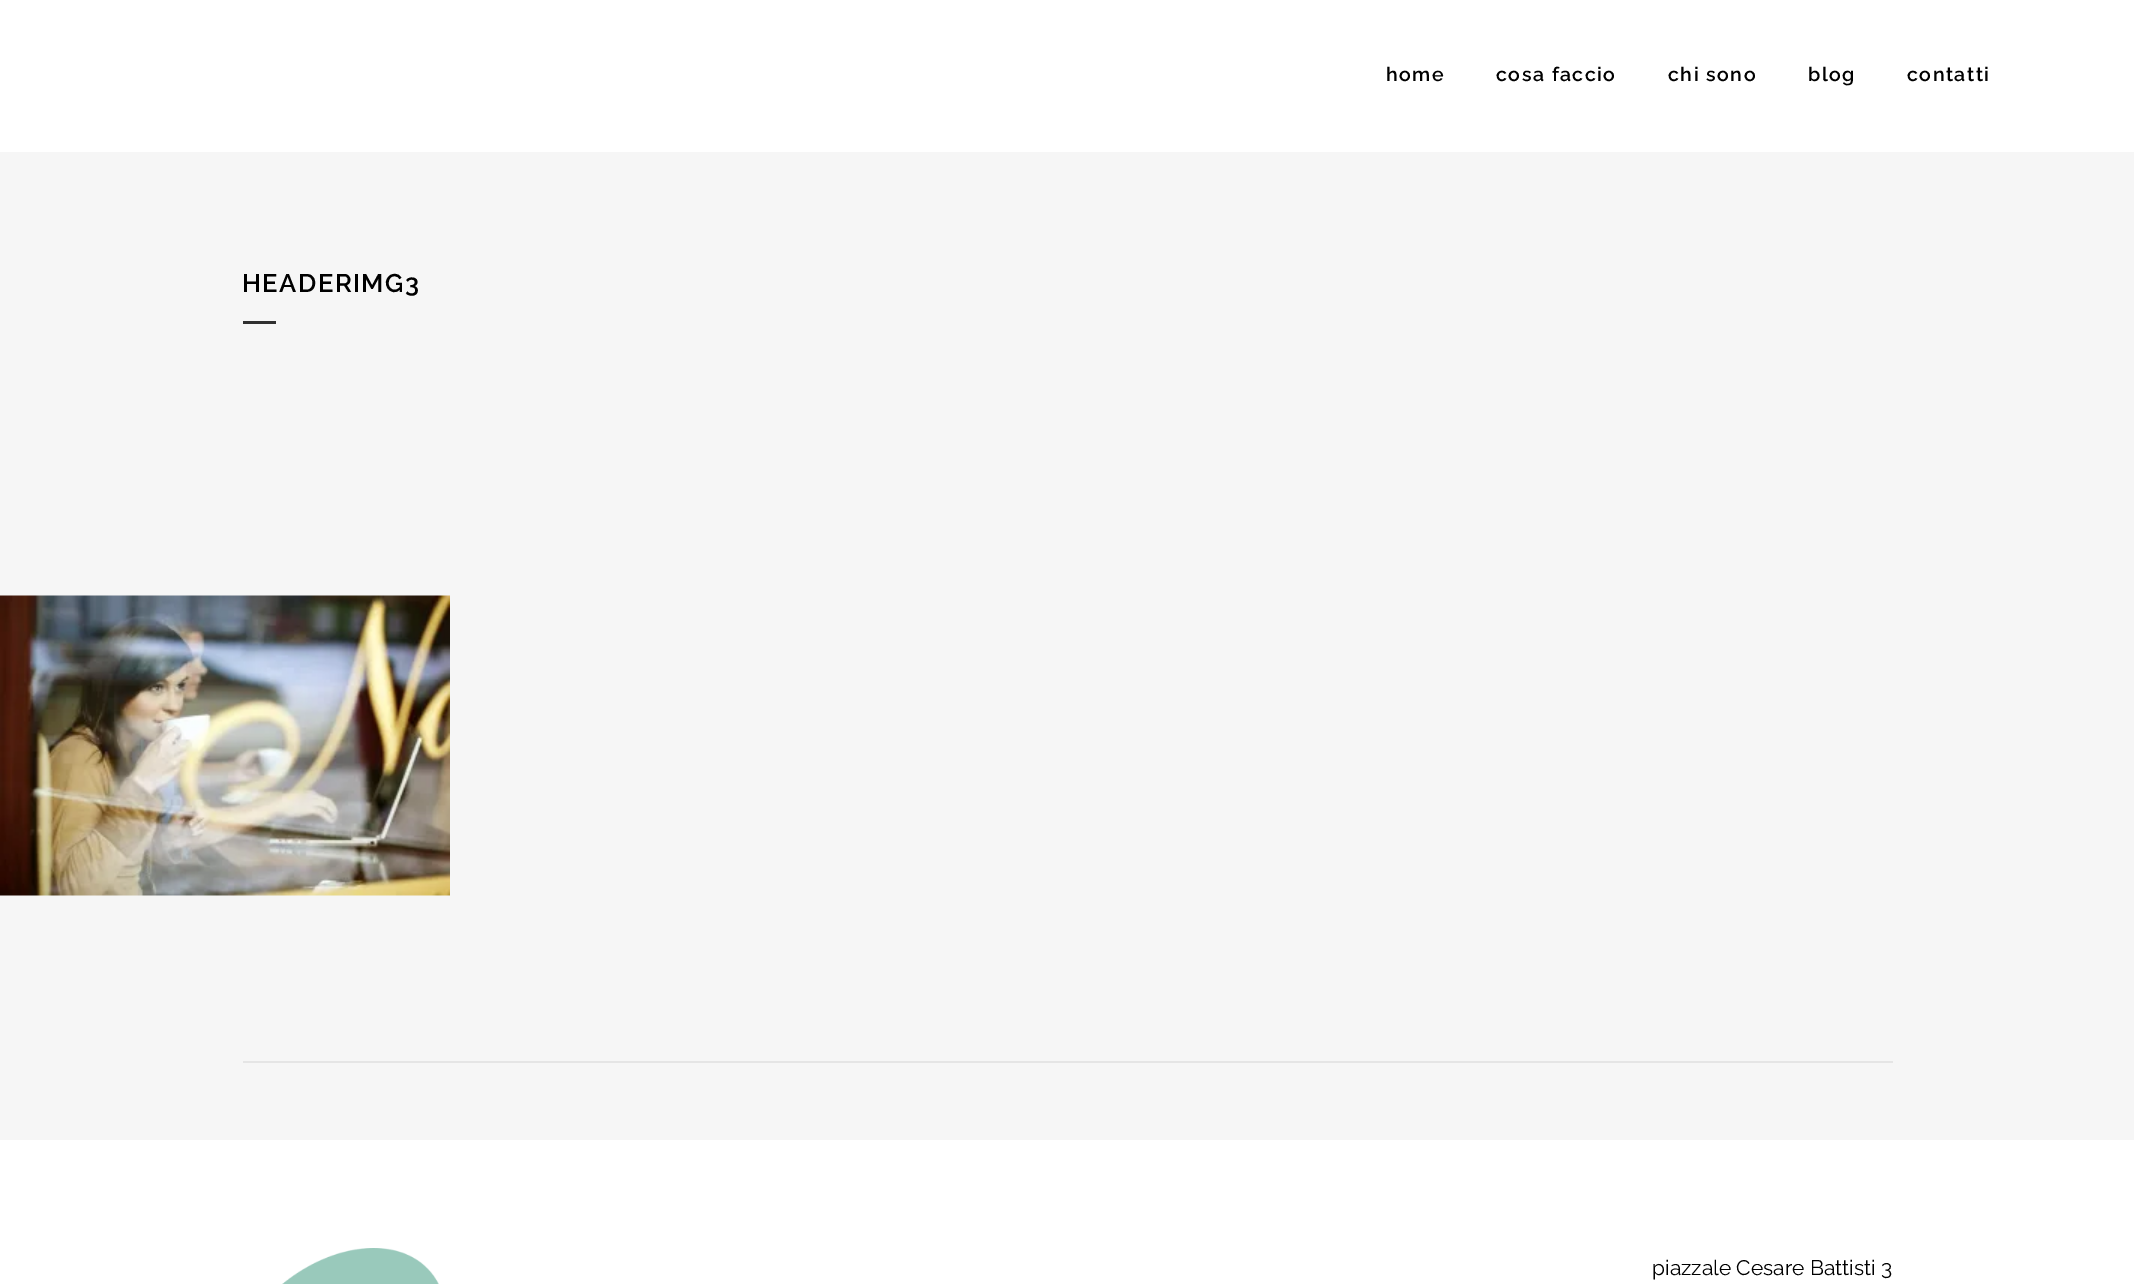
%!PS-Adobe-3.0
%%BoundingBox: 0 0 2134 1284
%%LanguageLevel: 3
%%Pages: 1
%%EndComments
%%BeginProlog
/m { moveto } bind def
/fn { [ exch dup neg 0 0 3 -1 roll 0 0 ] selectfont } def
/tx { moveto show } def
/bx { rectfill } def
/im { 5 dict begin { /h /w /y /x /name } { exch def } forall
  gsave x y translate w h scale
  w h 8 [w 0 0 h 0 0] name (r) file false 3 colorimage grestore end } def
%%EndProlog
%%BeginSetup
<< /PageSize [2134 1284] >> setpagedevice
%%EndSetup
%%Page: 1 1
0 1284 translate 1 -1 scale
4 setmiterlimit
0.965 setgray
0 0 2134 1284 bx
1 setgray
0 0 2134 152 bx
/Raleway-SemiBold 19.5 fn
0 setgray
1386 81 m 1.5 0 (home) ashow
1496 81 m 1.5 0 (cosa faccio) ashow
1668 81 m 1.5 0 (chi sono) ashow
1808 81 m 1.5 0 (blog) ashow
1907 81 m 1.5 0 (contatti) ashow
/Raleway-SemiBold 25.5 fn
242 292 m 1.5 0 (HEADERIMG3) ashow
0.188 setgray
243 321 33 3 bx
(image0.raw) 0 595 450 301 im
0.898 setgray
243 1061 1650 2 bx
1 setgray
0 1140 2134 144 bx
(image1.raw) 282 1248 157 36 im
/Raleway-Regular 21 fn
0 setgray
(piazzale Cesare Battisti 3) 1652 1275 tx
showpage
%%EOF
